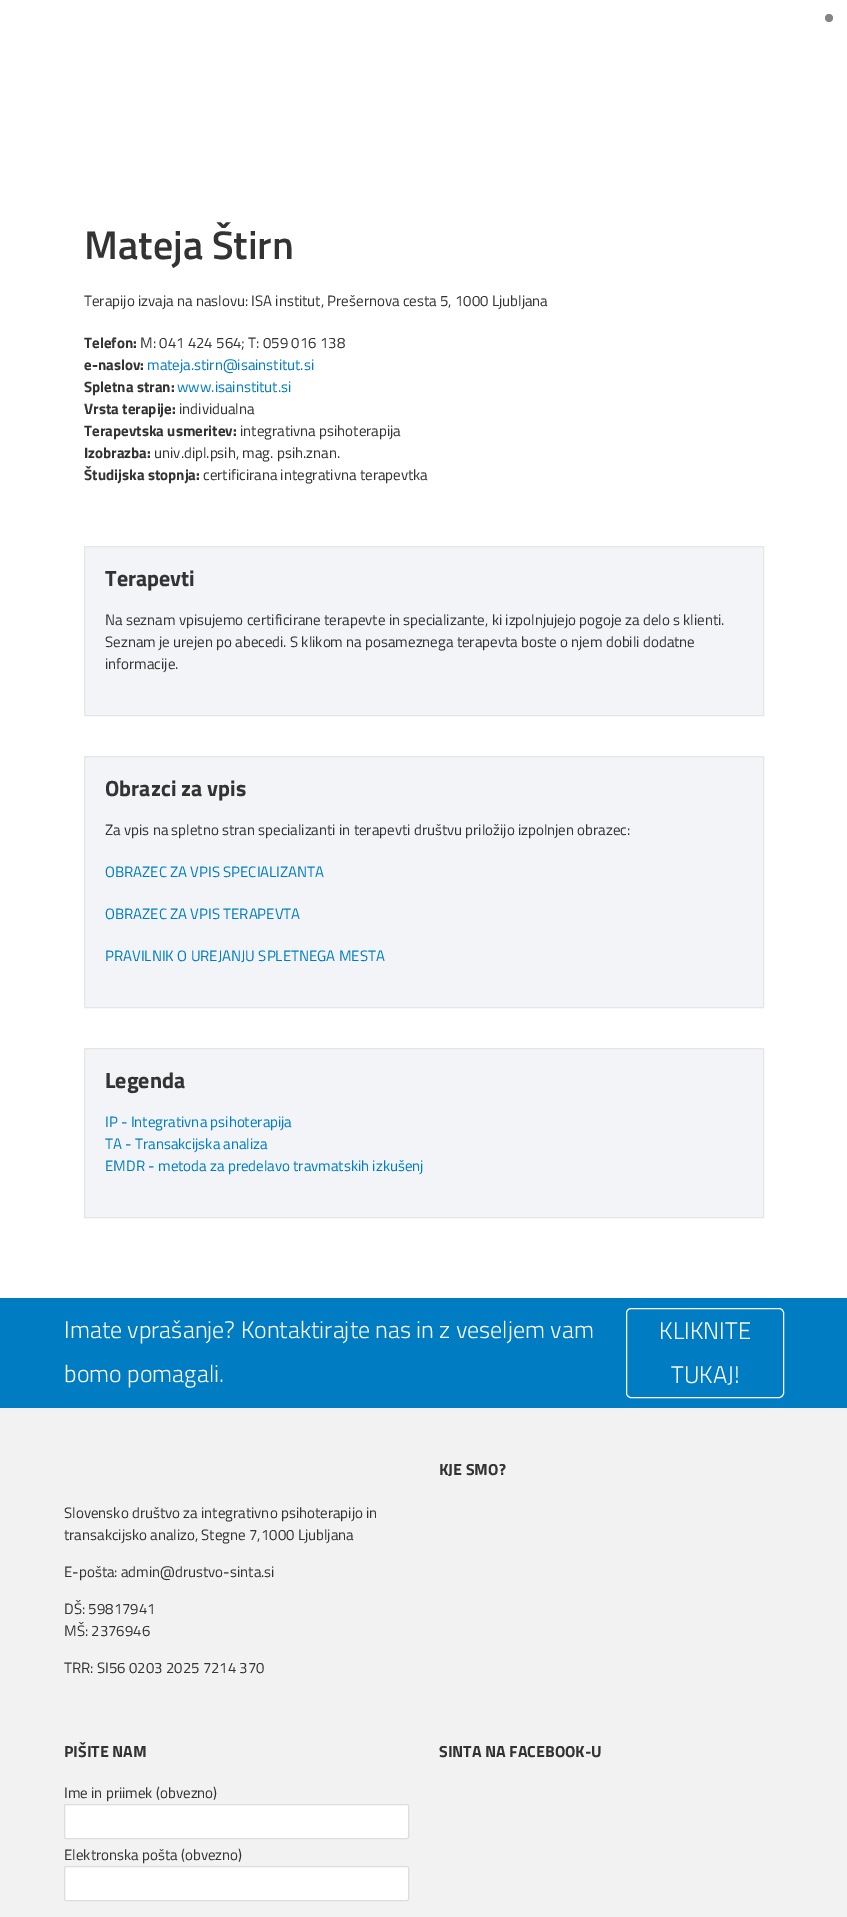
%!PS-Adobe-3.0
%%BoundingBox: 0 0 847 1917
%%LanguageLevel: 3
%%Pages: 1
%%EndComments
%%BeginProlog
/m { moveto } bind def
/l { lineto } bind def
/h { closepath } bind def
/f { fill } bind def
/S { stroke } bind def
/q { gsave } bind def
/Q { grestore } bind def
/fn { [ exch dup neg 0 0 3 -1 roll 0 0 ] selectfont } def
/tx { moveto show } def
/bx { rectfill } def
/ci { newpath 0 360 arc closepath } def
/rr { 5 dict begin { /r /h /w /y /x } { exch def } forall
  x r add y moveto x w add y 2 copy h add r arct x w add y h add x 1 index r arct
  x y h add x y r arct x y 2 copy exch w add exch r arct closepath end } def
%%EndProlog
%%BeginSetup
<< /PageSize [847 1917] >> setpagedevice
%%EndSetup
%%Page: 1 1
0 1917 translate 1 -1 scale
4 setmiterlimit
1 setgray
0 0 847 1917 bx
0.522 setgray
829 18 4 ci f
/TitilliumWeb-SemiBold 40 fn
0.2 setgray
(Mateja Štirn) 84 259 tx
/TitilliumWeb-Regular 15 fn
(Terapijo izvaja na naslovu: ISA institut, Prešernova cesta 5, 1000 Ljubljana) 84 306 tx
/TitilliumWeb-Bold 15 fn
(Telefon:) 84 348 tx
/TitilliumWeb-Regular 15 fn
(M: 041 424 564; T: 059 016 138) 140 348 tx
/TitilliumWeb-Bold 15 fn
(e-naslov:) 84 370 tx
/TitilliumWeb-Regular 15 fn
0 0.486 0.765 setrgbcolor
(mateja.stirn@isainstitut.si) 147 370 tx
/TitilliumWeb-Bold 15 fn
0.2 setgray
(Spletna stran:) 84 392 tx
/TitilliumWeb-Regular 15 fn
0 0.486 0.765 setrgbcolor
(www.isainstitut.si) 177 392 tx
/TitilliumWeb-Bold 15 fn
0.2 setgray
(Vrsta terapije:) 84 414 tx
/TitilliumWeb-Regular 15 fn
(individualna) 179 414 tx
/TitilliumWeb-Bold 15 fn
(Terapevtska usmeritev:) 84 436 tx
/TitilliumWeb-Regular 15 fn
(integrativna psihoterapija) 240 436 tx
/TitilliumWeb-Bold 15 fn
(Izobrazba:) 84 458 tx
/TitilliumWeb-Regular 15 fn
(univ.dipl.psih, mag. psih.znan.) 154 458 tx
/TitilliumWeb-Bold 15 fn
(Študijska stopnja:) 84 480 tx
/TitilliumWeb-Regular 15 fn
(certificirana integrativna terapevtka) 203 480 tx
0.949 0.957 0.969 setrgbcolor
84.5 546.5 m 763.5 546.5 l 763.5 715.5 l 84.5 715.5 l h q f Q
0.902 setgray
S
/TitilliumWeb-Bold 22 fn
0.2 setgray
(Terapevti) 105 586 tx
/TitilliumWeb-Regular 15 fn
(Na seznam vpisujemo certificirane terapevte in specializante, ki izpolnjujejo pogoje za delo s klienti.) 105 625 tx
(Seznam je urejen po abecedi. S klikom na posameznega terapevta boste o njem dobili dodatne) 105 647 tx
(informacije.) 105 669 tx
0.949 0.957 0.969 setrgbcolor
84.5 756.5 m 763.5 756.5 l 763.5 1007.5 l 84.5 1007.5 l h q f Q
0.902 setgray
S
/TitilliumWeb-Bold 22 fn
0.2 setgray
(Obrazci za vpis) 105 796 tx
/TitilliumWeb-Regular 15 fn
(Za vpis na spletno stran specializanti in terapevti društvu priložijo izpolnjen obrazec:) 105 835 tx
0 0.486 0.765 setrgbcolor
(OBRAZEC ZA VPIS SPECIALIZANTA) 105 877 tx
(OBRAZEC ZA VPIS TERAPEVTA) 105 919 tx
(PRAVILNIK O UREJANJU SPLETNEGA MESTA) 105 961 tx
0.949 0.957 0.969 setrgbcolor
84.5 1048.5 m 763.5 1048.5 l 763.5 1217.5 l 84.5 1217.5 l h q f Q
0.902 setgray
S
/TitilliumWeb-Bold 22 fn
0.2 setgray
(Legenda) 105 1088 tx
/TitilliumWeb-Regular 15 fn
0 0.486 0.765 setrgbcolor
(IP - Integrativna psihoterapija) 105 1127 tx
(TA - Transakcijska analiza) 105 1149 tx
(EMDR - metoda za predelavo travmatskih izkušenj) 105 1171 tx
0 1298 847 110 bx
/TitilliumWeb-Light 24 fn
1 setgray
(Imate vprašanje? Kontaktirajte nas in z veseljem vam) 64 1338 tx
(bomo pomagali.) 64 1382 tx
626.5 1308.5 157 89 4.5 rr S
(KLIKNITE) 659 1339 tx
(TUKAJ!) 671 1383 tx
0.949 setgray
0 1408 847 509 bx
/TitilliumWeb-Bold 16 fn
0.2 setgray
(KJE SMO?) 439 1475 tx
/TitilliumWeb-Regular 15 fn
(Slovensko društvo za integrativno psihoterapijo in) 64 1518 tx
(transakcijsko analizo, Stegne 7,1000 Ljubljana) 64 1540 tx
(E-pošta: admin@drustvo-sinta.si) 64 1577 tx
(DŠ: 59817941) 64 1614 tx
(MŠ: 2376946) 64 1636 tx
(TRR: SI56 0203 2025 7214 370) 64 1673 tx
/TitilliumWeb-Bold 16 fn
(PIŠITE NAM) 64 1757 tx
/TitilliumWeb-Regular 15 fn
(Ime in priimek \(obvezno\)) 64 1798 tx
1 setgray
64.5 1804.5 344 34 1.5 rr q f Q
0.867 setgray
S
0.2 setgray
(Elektronska pošta \(obvezno\)) 64 1860 tx
1 setgray
64.5 1866.5 344 34 1.5 rr q f Q
0.867 setgray
S
/TitilliumWeb-Bold 16 fn
0.2 setgray
(SINTA NA FACEBOOK-U) 439 1757 tx
showpage
%%EOF
